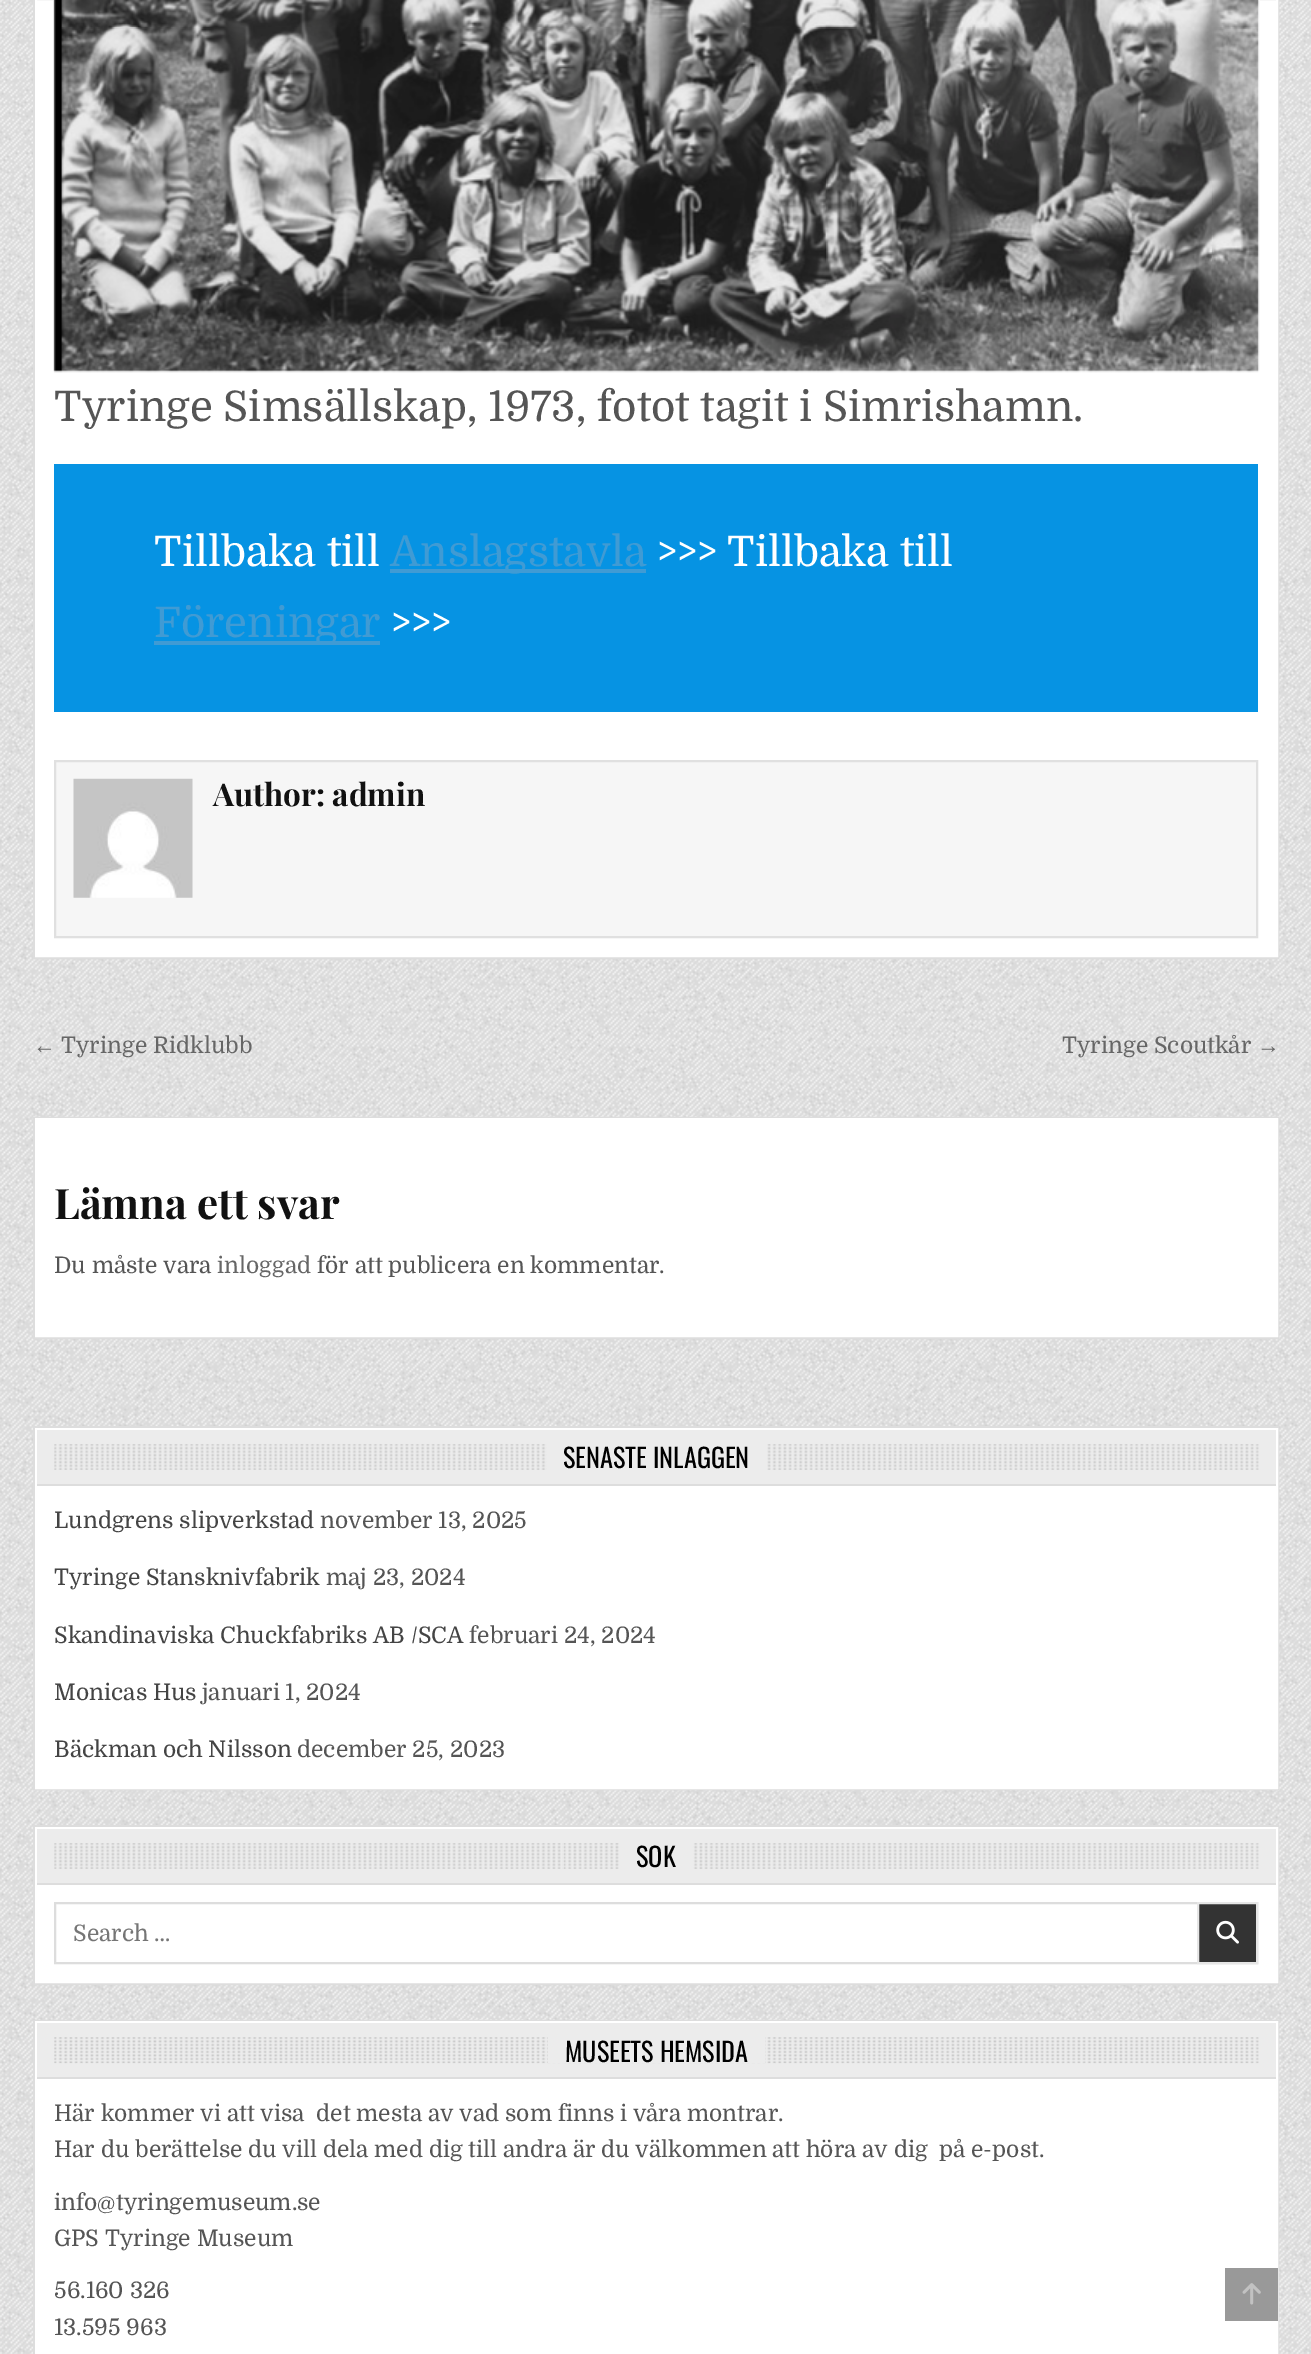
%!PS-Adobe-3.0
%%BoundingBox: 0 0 1311 2354
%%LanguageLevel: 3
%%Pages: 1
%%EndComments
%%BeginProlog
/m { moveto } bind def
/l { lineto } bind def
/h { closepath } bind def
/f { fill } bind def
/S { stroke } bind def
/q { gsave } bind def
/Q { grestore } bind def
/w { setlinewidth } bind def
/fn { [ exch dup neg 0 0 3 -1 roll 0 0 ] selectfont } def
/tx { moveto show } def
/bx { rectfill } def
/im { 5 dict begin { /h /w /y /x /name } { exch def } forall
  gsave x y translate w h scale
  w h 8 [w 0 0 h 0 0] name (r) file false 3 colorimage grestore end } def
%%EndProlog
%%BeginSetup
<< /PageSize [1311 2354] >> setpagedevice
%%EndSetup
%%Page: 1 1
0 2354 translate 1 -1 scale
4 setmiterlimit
1 setgray
0 0 1311 2354 bx
(image0.raw) 0 0 1311 2354 im
37 0 1239 955 bx
0.867 setgray
2 w
34 -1 1244 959 rectstroke
1 setgray
36 -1 1241 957 rectstroke
(image1.raw) 53 0 1207 373 im
/Domine-Regular 42 fn
0.333 setgray
(Tyringe Simsällskap, 1973, fotot tagit i Simrishamn.) 54 421 tx
0.024 0.576 0.89 setrgbcolor
54 464 1204 248 bx
1 setgray
(Tillbaka till) 154 566 tx
0.251 0.608 0.831 setrgbcolor
390 569 256 4 bx
(Anslagstavla) 390 566 tx
1 setgray
(>>> Tillbaka till) 657 566 tx
0.251 0.608 0.831 setrgbcolor
154 641 226 4 bx
(Föreningar) 154 637 tx
1 setgray
(>>>) 391 637 tx
0.965 setgray
55 761 m 1257 761 l 1257 937 l 55 937 l h q f Q
0.878 setgray
S
(image2.raw) 73 778 120 120 im
/PlayfairDisplay-Bold 31.5 fn
0.067 setgray
(Author: admin) 213 806 tx
/LiberationSans-Regular 22.75 fn
0.4 setgray
(←) 33 1053 tx
/Domine-Regular 22.75 fn
(Tyringe Ridklubb) 61 1053 tx
(Tyringe Scoutkår) 1062 1053 tx
/LiberationSans-Regular 22.75 fn
(→) 1257 1053 tx
1 setgray
37 1120 1239 215 bx
0.867 setgray
34 1118 1244 220 rectstroke
1 setgray
36 1119 1241 217 rectstroke
/PlayfairDisplay-Bold 42 fn
0.067 setgray
(Lämna ett svar) 54 1219 tx
/Domine-Regular 22.75 fn
0.333 setgray
(Du måste vara) 54 1273 tx
0.4 setgray
(inloggad) 217 1273 tx
0.333 setgray
(för att publicera en kommentar.) 317 1273 tx
1 setgray
37 1486 1239 301 bx
0.867 setgray
34 1427 1244 362 rectstroke
1 setgray
36 1429 1241 359 rectstroke
0.925 setgray
37 1430 1239 54 bx
0.867 setgray
37 1484 1239 2 bx
(image3.raw) 54 1444 1205 26 im
0.925 setgray
547 1444 219 26 bx
q
54 1444 1204 26 rectclip
/Oswald-Regular 26.25 fn
0 setgray
(SENASTE INLÄGGEN) 563 1468 tx
Q
0.267 setgray
(Lundgrens slipverkstad) 54 1528 tx
0.333 setgray
(november 13, 2025) 320 1528 tx
0.267 setgray
(Tyringe Stansknivfabrik) 54 1585 tx
0.333 setgray
(maj 23, 2024) 326 1585 tx
0.267 setgray
(Skandinaviska Chuckfabriks AB /SCA) 54 1643 tx
0.333 setgray
(februari 24, 2024) 469 1643 tx
0.267 setgray
(Monicas Hus) 54 1700 tx
0.333 setgray
(januari 1, 2024) 202 1700 tx
0.267 setgray
(Bäckman och Nilsson) 54 1757 tx
0.333 setgray
(december 25, 2023) 297 1757 tx
1 setgray
37 1885 1239 96 bx
0.867 setgray
34 1826 1244 158 rectstroke
1 setgray
36 1828 1241 154 rectstroke
0.925 setgray
37 1829 1239 54 bx
0.867 setgray
37 1883 1239 2 bx
(image3.raw) 54 1843 1205 26 im
0.925 setgray
620 1843 73 26 bx
q
54 1843 1204 26 rectclip
/Oswald-Regular 26.25 fn
0 setgray
(SÖK) 636 1867 tx
Q
0.867 setgray
55 1903 1202 60 rectstroke
0.459 setgray
(Search …) 73 1941 tx
0.2 setgray
1198 1903 m 1257 1903 l 1257 1963 l 1198 1963 l h q f Q
0.902 setgray
S
(image4.raw) 1216 1920 23 24 im
1 setgray
37 2079 1239 275 bx
0.867 setgray
34 2021 1244 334 rectstroke
1 setgray
36 2022 1241 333 rectstroke
0.925 setgray
37 2023 1239 54 bx
0.867 setgray
37 2077 1239 2 bx
(image5.raw) 54 2037 1205 27 im
0.925 setgray
548 2037 217 26 bx
/Oswald-Regular 26.25 fn
0 setgray
(MUSEETS HEMSIDA) 565 2062 tx
/Domine-Regular 22.75 fn
0.333 setgray
(Här kommer vi att visa  det mesta av vad som finns i våra montrar.) 54 2121 tx
(Har du berättelse du vill dela med dig till andra är du välkommen att höra av dig  på e-post.) 54 2157 tx
(info@tyringemuseum.se) 54 2210 tx
(GPS Tyringe Museum) 54 2246 tx
(56.160 326) 54 2298 tx
(13.595 963) 54 2335 tx
0.6 setgray
1225 2268 53 53 bx
(image6.raw) 1242 2283 19 22 im
showpage
%%EOF
